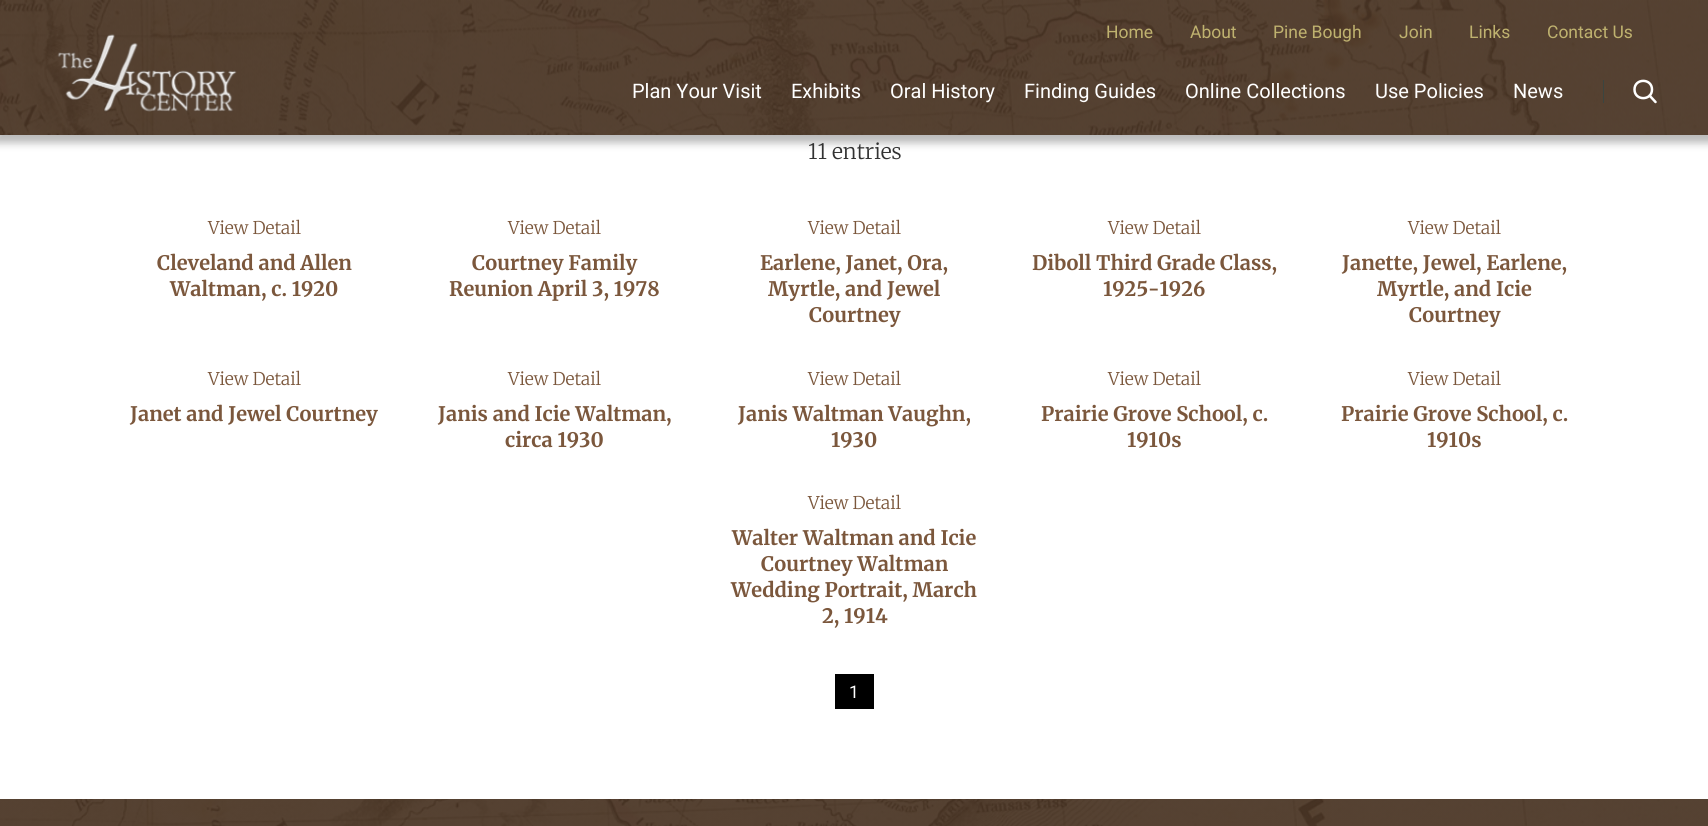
#include <cairo.h>
#include <math.h>
#include <stddef.h>


static void round_rect(cairo_t *cr, double x, double y, double w, double h, double r) {
    cairo_new_sub_path(cr);
    cairo_arc(cr, x + w - r, y + h - r, r, 0, M_PI / 2);
    cairo_arc(cr, x + r, y + h - r, r, M_PI / 2, M_PI);
    cairo_arc(cr, x + r, y + r, r, M_PI, 1.5 * M_PI);
    cairo_arc(cr, x + w - r, y + r, r, 1.5 * M_PI, 2 * M_PI);
    cairo_close_path(cr);
}

static void shadow(cairo_t *cr, double x, double y, double w, double h, double r, double blur, double alpha) {
    cairo_push_group_with_content(cr, CAIRO_CONTENT_ALPHA);
    cairo_set_operator(cr, CAIRO_OPERATOR_SOURCE);
    for (int i = 15; i >= -15 && fmin(w, h) + blur * i / 3 > 0; i -= 2) {
        double e = blur * i / 6;
        cairo_set_source_rgba(cr, 0, 0, 0, alpha * erfc((i - 1) / 8.5) / 2);
        round_rect(cr, x - e, y - e, w + 2 * e, h + 2 * e, fmax(0, fmin(r + e + blur * .6, fmin(w, h) / 2 + e)));
        cairo_fill(cr);
    }
    cairo_pattern_t *soft = cairo_pop_group(cr);
    cairo_mask(cr, soft);
    cairo_pattern_destroy(soft);
}

static void picture(cairo_t *cr, const char *path, double x, double y, double w, double h) {
    cairo_surface_t *image = cairo_image_surface_create_from_png(path);
    cairo_save(cr);
    cairo_set_source_surface(cr, image, x, y);
    cairo_rectangle(cr, x, y, w, h);
    cairo_fill(cr);
    cairo_restore(cr);
    cairo_surface_destroy(image);
}

int main(void) {
    cairo_surface_t *surface = cairo_image_surface_create(CAIRO_FORMAT_RGB24, 1708, 826);
    cairo_t *cr = cairo_create(surface);
    cairo_font_options_t *options = cairo_font_options_create();
    cairo_font_options_set_hint_metrics(options, CAIRO_HINT_METRICS_OFF);
    cairo_font_options_set_hint_style(options, CAIRO_HINT_STYLE_NONE);
    cairo_set_font_options(cr, options);
    cairo_set_miter_limit(cr, 4);
    cairo_set_source_rgb(cr, 1, 1, 1);
    cairo_paint(cr);
    cairo_set_source_rgb(cr, 0, 0, 0);
    shadow(cr, -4, 0, 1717, 143, 0, 4, 0.27);
    picture(cr, "img1.png", 0, 0, 1708, 135);
    cairo_select_font_face(cr, "Roboto", CAIRO_FONT_SLANT_NORMAL, CAIRO_FONT_WEIGHT_NORMAL);
    cairo_set_font_size(cr, 17.5);
    cairo_set_source_rgb(cr, 0.749, 0.698, 0.435);
    cairo_move_to(cr, 1106, 38);
    cairo_show_text(cr, "Home");
    cairo_move_to(cr, 1190, 38);
    cairo_show_text(cr, "About");
    cairo_move_to(cr, 1273, 38);
    cairo_show_text(cr, "Pine Bough");
    cairo_move_to(cr, 1399, 38);
    cairo_show_text(cr, "Join");
    cairo_move_to(cr, 1469, 38);
    cairo_show_text(cr, "Links");
    cairo_move_to(cr, 1547, 38);
    cairo_show_text(cr, "Contact Us");
    picture(cr, "img2.png", 57, 34, 180, 78);
    cairo_set_font_size(cr, 20);
    cairo_set_source_rgb(cr, 1, 1, 1);
    cairo_move_to(cr, 632, 98);
    cairo_show_text(cr, "Plan Your Visit");
    cairo_move_to(cr, 791, 98);
    cairo_show_text(cr, "Exhibits");
    cairo_move_to(cr, 890, 98);
    cairo_show_text(cr, "Oral History");
    cairo_move_to(cr, 1024, 98);
    cairo_show_text(cr, "Finding Guides");
    cairo_move_to(cr, 1185, 98);
    cairo_show_text(cr, "Online Collections");
    cairo_move_to(cr, 1375, 98);
    cairo_show_text(cr, "Use Policies");
    cairo_move_to(cr, 1513, 98);
    cairo_show_text(cr, "News");
    cairo_set_source_rgb(cr, 0.231, 0.271, 0.251);
    cairo_rectangle(cr, 1603, 80, 1, 23);
    cairo_fill(cr);
    cairo_new_path(cr);
    cairo_move_to(cr, 1649.5, 95.5);
    cairo_line_to(cr, 1655.5, 102);
    cairo_move_to(cr, 1652, 89.5);
    cairo_curve_to(cr, 1652, 101, 1634.5, 101, 1634.5, 89.5);
    cairo_curve_to(cr, 1634.5, 78, 1652, 78, 1652, 89.5);
    cairo_close_path(cr);
    cairo_set_source_rgb(cr, 1, 1, 1);
    cairo_set_line_width(cr, 2.5);
    cairo_set_line_cap(cr, CAIRO_LINE_CAP_ROUND);
    cairo_set_line_join(cr, CAIRO_LINE_JOIN_ROUND);
    cairo_stroke(cr);
    cairo_select_font_face(cr, "Merriweather Light", CAIRO_FONT_SLANT_NORMAL, CAIRO_FONT_WEIGHT_NORMAL);
    cairo_set_font_size(cr, 21.25);
    cairo_set_source_rgb(cr, 0.2, 0.2, 0.2);
    cairo_move_to(cr, 808, 159);
    cairo_show_text(cr, "11 entries");
    cairo_set_font_size(cr, 17.5);
    cairo_set_source_rgb(cr, 0.482, 0.341, 0.235);
    cairo_move_to(cr, 208, 234);
    cairo_show_text(cr, "View Detail");
    cairo_select_font_face(cr, "Merriweather", CAIRO_FONT_SLANT_NORMAL, CAIRO_FONT_WEIGHT_BOLD);
    cairo_set_font_size(cr, 20);
    cairo_move_to(cr, 157, 270);
    cairo_show_text(cr, "Cleveland and Allen");
    cairo_move_to(cr, 170, 296);
    cairo_show_text(cr, "Waltman, c. 1920");
    cairo_select_font_face(cr, "Merriweather Light", CAIRO_FONT_SLANT_NORMAL, CAIRO_FONT_WEIGHT_NORMAL);
    cairo_set_font_size(cr, 17.5);
    cairo_move_to(cr, 508, 234);
    cairo_show_text(cr, "View Detail");
    cairo_select_font_face(cr, "Merriweather", CAIRO_FONT_SLANT_NORMAL, CAIRO_FONT_WEIGHT_BOLD);
    cairo_set_font_size(cr, 20);
    cairo_move_to(cr, 472, 270);
    cairo_show_text(cr, "Courtney Family");
    cairo_move_to(cr, 449, 296);
    cairo_show_text(cr, "Reunion April 3, 1978");
    cairo_select_font_face(cr, "Merriweather Light", CAIRO_FONT_SLANT_NORMAL, CAIRO_FONT_WEIGHT_NORMAL);
    cairo_set_font_size(cr, 17.5);
    cairo_move_to(cr, 808, 234);
    cairo_show_text(cr, "View Detail");
    cairo_select_font_face(cr, "Merriweather", CAIRO_FONT_SLANT_NORMAL, CAIRO_FONT_WEIGHT_BOLD);
    cairo_set_font_size(cr, 20);
    cairo_move_to(cr, 760, 270);
    cairo_show_text(cr, "Earlene, Janet, Ora,");
    cairo_move_to(cr, 768, 296);
    cairo_show_text(cr, "Myrtle, and Jewel");
    cairo_move_to(cr, 809, 322);
    cairo_show_text(cr, "Courtney");
    cairo_select_font_face(cr, "Merriweather Light", CAIRO_FONT_SLANT_NORMAL, CAIRO_FONT_WEIGHT_NORMAL);
    cairo_set_font_size(cr, 17.5);
    cairo_move_to(cr, 1108, 234);
    cairo_show_text(cr, "View Detail");
    cairo_select_font_face(cr, "Merriweather", CAIRO_FONT_SLANT_NORMAL, CAIRO_FONT_WEIGHT_BOLD);
    cairo_set_font_size(cr, 20);
    cairo_move_to(cr, 1032, 270);
    cairo_show_text(cr, "Diboll Third Grade Class,");
    cairo_move_to(cr, 1103, 296);
    cairo_show_text(cr, "1925-1926");
    cairo_select_font_face(cr, "Merriweather Light", CAIRO_FONT_SLANT_NORMAL, CAIRO_FONT_WEIGHT_NORMAL);
    cairo_set_font_size(cr, 17.5);
    cairo_move_to(cr, 1408, 234);
    cairo_show_text(cr, "View Detail");
    cairo_select_font_face(cr, "Merriweather", CAIRO_FONT_SLANT_NORMAL, CAIRO_FONT_WEIGHT_BOLD);
    cairo_set_font_size(cr, 20);
    cairo_move_to(cr, 1342, 270);
    cairo_show_text(cr, "Janette, Jewel, Earlene,");
    cairo_move_to(cr, 1377, 296);
    cairo_show_text(cr, "Myrtle, and Icie");
    cairo_move_to(cr, 1409, 322);
    cairo_show_text(cr, "Courtney");
    cairo_select_font_face(cr, "Merriweather Light", CAIRO_FONT_SLANT_NORMAL, CAIRO_FONT_WEIGHT_NORMAL);
    cairo_set_font_size(cr, 17.5);
    cairo_move_to(cr, 208, 385);
    cairo_show_text(cr, "View Detail");
    cairo_select_font_face(cr, "Merriweather", CAIRO_FONT_SLANT_NORMAL, CAIRO_FONT_WEIGHT_BOLD);
    cairo_set_font_size(cr, 20);
    cairo_move_to(cr, 130, 421);
    cairo_show_text(cr, "Janet and Jewel Courtney");
    cairo_select_font_face(cr, "Merriweather Light", CAIRO_FONT_SLANT_NORMAL, CAIRO_FONT_WEIGHT_NORMAL);
    cairo_set_font_size(cr, 17.5);
    cairo_move_to(cr, 508, 385);
    cairo_show_text(cr, "View Detail");
    cairo_select_font_face(cr, "Merriweather", CAIRO_FONT_SLANT_NORMAL, CAIRO_FONT_WEIGHT_BOLD);
    cairo_set_font_size(cr, 20);
    cairo_move_to(cr, 438, 421);
    cairo_show_text(cr, "Janis and Icie Waltman,");
    cairo_move_to(cr, 505, 447);
    cairo_show_text(cr, "circa 1930");
    cairo_select_font_face(cr, "Merriweather Light", CAIRO_FONT_SLANT_NORMAL, CAIRO_FONT_WEIGHT_NORMAL);
    cairo_set_font_size(cr, 17.5);
    cairo_move_to(cr, 808, 385);
    cairo_show_text(cr, "View Detail");
    cairo_select_font_face(cr, "Merriweather", CAIRO_FONT_SLANT_NORMAL, CAIRO_FONT_WEIGHT_BOLD);
    cairo_set_font_size(cr, 20);
    cairo_move_to(cr, 738, 421);
    cairo_show_text(cr, "Janis Waltman Vaughn,");
    cairo_move_to(cr, 831, 447);
    cairo_show_text(cr, "1930");
    cairo_select_font_face(cr, "Merriweather Light", CAIRO_FONT_SLANT_NORMAL, CAIRO_FONT_WEIGHT_NORMAL);
    cairo_set_font_size(cr, 17.5);
    cairo_move_to(cr, 1108, 385);
    cairo_show_text(cr, "View Detail");
    cairo_select_font_face(cr, "Merriweather", CAIRO_FONT_SLANT_NORMAL, CAIRO_FONT_WEIGHT_BOLD);
    cairo_set_font_size(cr, 20);
    cairo_move_to(cr, 1041, 421);
    cairo_show_text(cr, "Prairie Grove School, c.");
    cairo_move_to(cr, 1127, 447);
    cairo_show_text(cr, "1910s");
    cairo_select_font_face(cr, "Merriweather Light", CAIRO_FONT_SLANT_NORMAL, CAIRO_FONT_WEIGHT_NORMAL);
    cairo_set_font_size(cr, 17.5);
    cairo_move_to(cr, 1408, 385);
    cairo_show_text(cr, "View Detail");
    cairo_select_font_face(cr, "Merriweather", CAIRO_FONT_SLANT_NORMAL, CAIRO_FONT_WEIGHT_BOLD);
    cairo_set_font_size(cr, 20);
    cairo_move_to(cr, 1341, 421);
    cairo_show_text(cr, "Prairie Grove School, c.");
    cairo_move_to(cr, 1427, 447);
    cairo_show_text(cr, "1910s");
    cairo_select_font_face(cr, "Merriweather Light", CAIRO_FONT_SLANT_NORMAL, CAIRO_FONT_WEIGHT_NORMAL);
    cairo_set_font_size(cr, 17.5);
    cairo_move_to(cr, 808, 509);
    cairo_show_text(cr, "View Detail");
    cairo_select_font_face(cr, "Merriweather", CAIRO_FONT_SLANT_NORMAL, CAIRO_FONT_WEIGHT_BOLD);
    cairo_set_font_size(cr, 20);
    cairo_move_to(cr, 732, 545);
    cairo_show_text(cr, "Walter Waltman and Icie");
    cairo_move_to(cr, 761, 571);
    cairo_show_text(cr, "Courtney Waltman");
    cairo_move_to(cr, 731, 597);
    cairo_show_text(cr, "Wedding Portrait, March");
    cairo_move_to(cr, 822, 623);
    cairo_show_text(cr, "2, 1914");
    cairo_set_source_rgb(cr, 0, 0, 0);
    cairo_rectangle(cr, 835, 674, 39, 35);
    cairo_fill(cr);
    cairo_select_font_face(cr, "Roboto", CAIRO_FONT_SLANT_NORMAL, CAIRO_FONT_WEIGHT_NORMAL);
    cairo_set_font_size(cr, 17.5);
    cairo_set_source_rgb(cr, 1, 1, 1);
    cairo_move_to(cr, 849, 698);
    cairo_show_text(cr, "1");
    picture(cr, "img3.png", 0, 799, 1708, 27);
    cairo_surface_write_to_png(surface, "page.png");
    cairo_font_options_destroy(options);
    cairo_destroy(cr);
    cairo_surface_destroy(surface);
    return 0;
}
